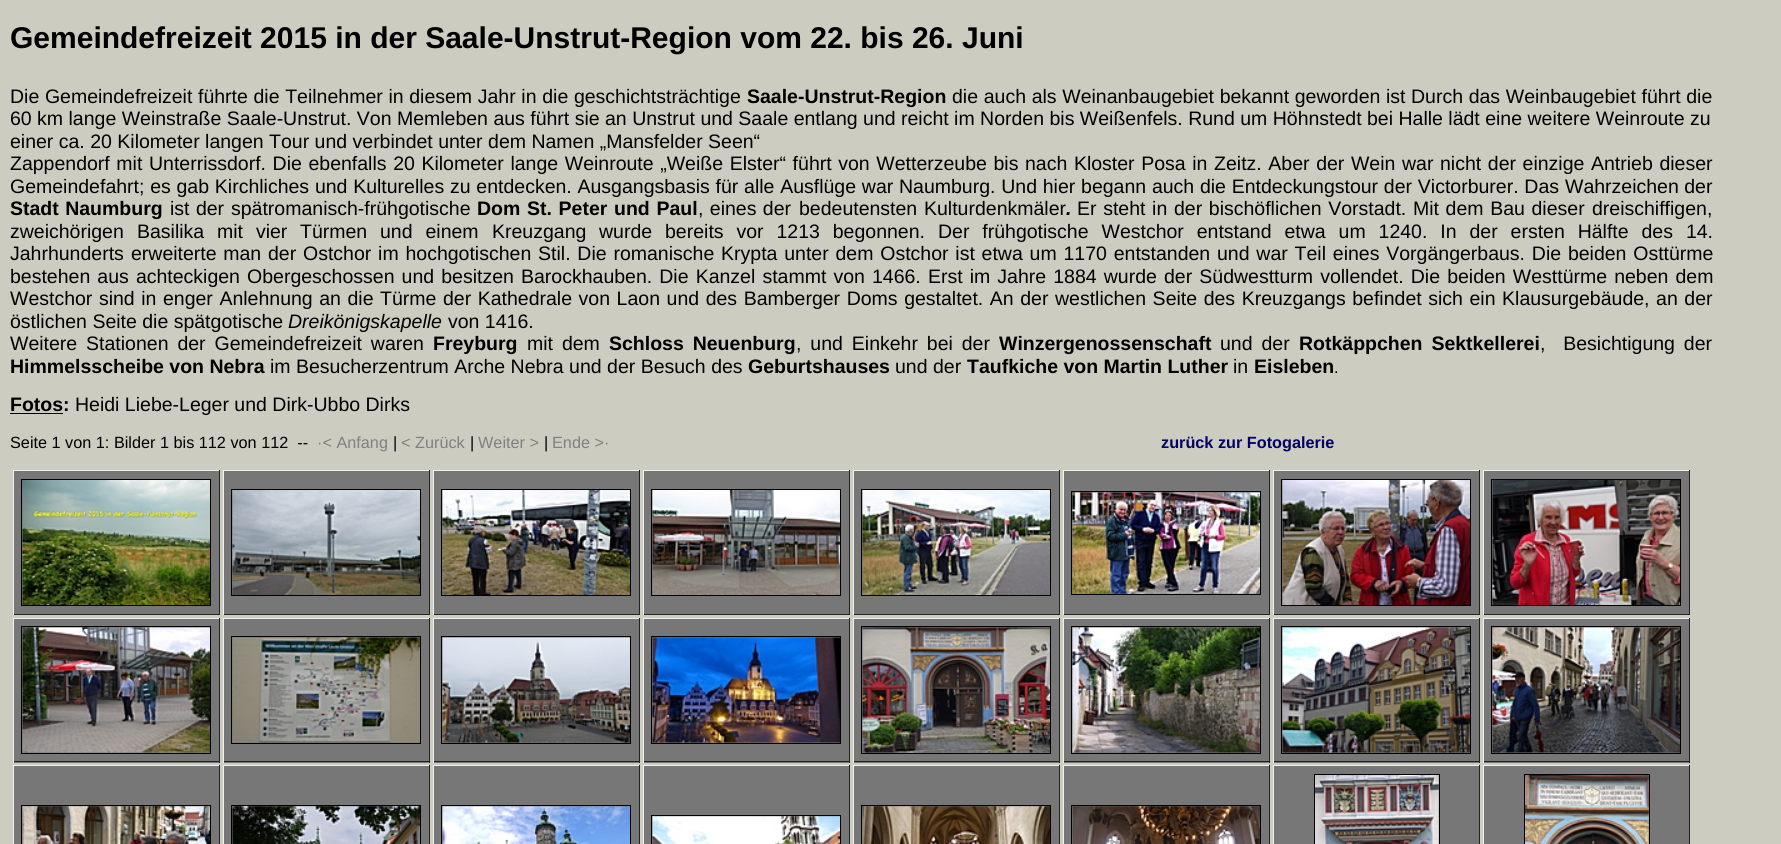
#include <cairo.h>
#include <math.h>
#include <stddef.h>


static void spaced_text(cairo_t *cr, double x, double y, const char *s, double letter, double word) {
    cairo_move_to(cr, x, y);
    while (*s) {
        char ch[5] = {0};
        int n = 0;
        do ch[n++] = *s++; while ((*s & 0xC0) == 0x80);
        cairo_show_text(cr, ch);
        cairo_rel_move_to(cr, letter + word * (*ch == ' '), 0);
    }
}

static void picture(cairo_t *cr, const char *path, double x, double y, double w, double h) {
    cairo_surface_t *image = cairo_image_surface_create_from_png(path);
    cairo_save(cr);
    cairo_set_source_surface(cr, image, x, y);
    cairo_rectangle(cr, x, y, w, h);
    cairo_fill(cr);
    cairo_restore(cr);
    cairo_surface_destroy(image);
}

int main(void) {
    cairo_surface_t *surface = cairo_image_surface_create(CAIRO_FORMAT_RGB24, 1781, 844);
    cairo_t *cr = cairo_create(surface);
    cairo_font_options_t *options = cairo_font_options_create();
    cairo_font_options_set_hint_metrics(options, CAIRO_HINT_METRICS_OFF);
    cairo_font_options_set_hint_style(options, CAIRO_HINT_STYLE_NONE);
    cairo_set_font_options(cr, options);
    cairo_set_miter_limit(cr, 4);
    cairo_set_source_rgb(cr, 0.8, 0.8, 0.753);
    cairo_paint(cr);
    cairo_select_font_face(cr, "Liberation Sans", CAIRO_FONT_SLANT_NORMAL, CAIRO_FONT_WEIGHT_BOLD);
    cairo_set_font_size(cr, 30);
    cairo_set_source_rgb(cr, 0, 0, 0);
    cairo_move_to(cr, 10, 48);
    cairo_show_text(cr, "Gemeindefreizeit 2015 in der Saale-Unstrut-Region vom 22. bis 26. Juni");
    cairo_select_font_face(cr, "Liberation Sans", CAIRO_FONT_SLANT_NORMAL, CAIRO_FONT_WEIGHT_NORMAL);
    cairo_set_font_size(cr, 19.5);
    spaced_text(cr, 10, 103, "Die Gemeindefreizeit führte die Teilnehmer in diesem Jahr in die geschichtsträchtige", 0, 0.25);
    cairo_select_font_face(cr, "Liberation Sans", CAIRO_FONT_SLANT_NORMAL, CAIRO_FONT_WEIGHT_BOLD);
    cairo_move_to(cr, 747, 103);
    cairo_show_text(cr, "Saale-Unstrut-Region");
    cairo_select_font_face(cr, "Liberation Sans", CAIRO_FONT_SLANT_NORMAL, CAIRO_FONT_WEIGHT_NORMAL);
    spaced_text(cr, 952, 103, "die auch als Weinanbaugebiet bekannt geworden ist", 0, 0.25);
    spaced_text(cr, 1411, 103, "Durch das Weinbaugebiet führt die", 0, 0.25);
    cairo_move_to(cr, 10, 125);
    cairo_show_text(cr, "60 km lange Weinstraße Saale-Unstrut. Von Memleben aus führt sie an Unstrut und Saale entlang und reicht im Norden bis Weißenfels. Rund um Höhnstedt bei Halle lädt eine weitere Weinroute zu");
    cairo_move_to(cr, 10, 148);
    cairo_show_text(cr, "einer ca. 20 Kilometer langen Tour und verbindet unter dem Namen „Mansfelder Seen“");
    spaced_text(cr, 10, 170, "Zappendorf mit Unterrissdorf. Die ebenfalls 20 Kilometer lange Weinroute „Weiße Elster“ führt von Wetterzeube bis nach Kloster Posa in Zeitz. Aber der Wein war", 0, 1.2);
    spaced_text(cr, 1440, 170, "nicht der einzige Antrieb dieser", 0, 1.2);
    spaced_text(cr, 10, 193, "Gemeindefahrt; es gab Kirchliches und Kulturelles zu entdecken. Ausgangsbasis für alle Ausflüge war Naumburg. Und hier begann auch die Entdeckungstour der Victorburer. Das", 0, 0.35);
    cairo_move_to(cr, 1565, 193);
    cairo_show_text(cr, "Wahrzeichen der");
    cairo_select_font_face(cr, "Liberation Sans", CAIRO_FONT_SLANT_NORMAL, CAIRO_FONT_WEIGHT_BOLD);
    spaced_text(cr, 10, 215, "Stadt Naumburg", 0, 1);
    cairo_select_font_face(cr, "Liberation Sans", CAIRO_FONT_SLANT_NORMAL, CAIRO_FONT_WEIGHT_NORMAL);
    spaced_text(cr, 170, 215, "ist der", 0, 1);
    cairo_move_to(cr, 231, 215);
    cairo_show_text(cr, "spätromanisch-frühgotische");
    cairo_select_font_face(cr, "Liberation Sans", CAIRO_FONT_SLANT_NORMAL, CAIRO_FONT_WEIGHT_BOLD);
    spaced_text(cr, 477, 215, "Dom St. Peter und Paul", 0, 1.25);
    cairo_select_font_face(cr, "Liberation Sans", CAIRO_FONT_SLANT_NORMAL, CAIRO_FONT_WEIGHT_NORMAL);
    spaced_text(cr, 698, 215, ", eines der", 0, 1);
    cairo_move_to(cr, 799, 215);
    cairo_show_text(cr, "bedeutensten");
    cairo_move_to(cr, 924, 215);
    cairo_show_text(cr, "Kulturdenkmäler");
    cairo_select_font_face(cr, "Liberation Sans", CAIRO_FONT_SLANT_ITALIC, CAIRO_FONT_WEIGHT_BOLD);
    cairo_move_to(cr, 1066, 215);
    cairo_show_text(cr, ".");
    cairo_select_font_face(cr, "Liberation Sans", CAIRO_FONT_SLANT_NORMAL, CAIRO_FONT_WEIGHT_NORMAL);
    spaced_text(cr, 1077, 215, "Er steht in der bischöflichen Vorstadt. Mit dem Bau dieser", 0, 1.25);
    cairo_move_to(cr, 1592, 215);
    cairo_show_text(cr, "dreischiffigen,");
    cairo_move_to(cr, 10, 238);
    cairo_show_text(cr, "zweichörigen");
    cairo_move_to(cr, 137, 238);
    cairo_show_text(cr, "Basilika");
    spaced_text(cr, 217, 238, "mit vier", 0, 7.5);
    cairo_move_to(cr, 300, 238);
    cairo_show_text(cr, "Türmen");
    spaced_text(cr, 380, 238, "und einem", 0, 7.5);
    cairo_move_to(cr, 492, 238);
    cairo_show_text(cr, "Kreuzgang");
    spaced_text(cr, 599, 238, "wurde bereits vor 1213 begonnen.", 0, 7.5);
    spaced_text(cr, 938, 238, "Der frühgotische Westchor entstand etwa um 1240. In der ersten Hälfte des 14.", 0, 7.5);
    cairo_move_to(cr, 10, 260);
    cairo_show_text(cr, "Jahrhunderts");
    spaced_text(cr, 131, 260, "erweiterte man", 0, 1.25);
    spaced_text(cr, 268, 260, "der Ostchor im hochgotischen Stil. Die romanische Krypta unter dem Ostchor ist etwa um 1170 entstanden und war Teil eines Vorgängerbaus. Die beiden Osttürme", 0, 1.4);
    spaced_text(cr, 10, 283, "bestehen aus achteckigen Obergeschossen und besitzen Barockhauben. Die Kanzel stammt von 1466. Erst im Jahre 1884 wurde der Südwestturm vollendet. Die beiden Westtürme neben dem", 0, 1.7);
    spaced_text(cr, 10, 305, "Westchor sind in enger Anlehnung an die Türme der Kathedrale von Laon und des Bamberger Doms gestaltet. An der westlichen Seite des Kreuzgangs befindet sich ein Klausurgebäude, an der", 0, 1.15);
    cairo_move_to(cr, 10, 328);
    cairo_show_text(cr, "östlichen Seite die spätgotische");
    cairo_select_font_face(cr, "Liberation Sans", CAIRO_FONT_SLANT_ITALIC, CAIRO_FONT_WEIGHT_NORMAL);
    cairo_move_to(cr, 288, 328);
    cairo_show_text(cr, "Dreikönigskapelle");
    cairo_select_font_face(cr, "Liberation Sans", CAIRO_FONT_SLANT_NORMAL, CAIRO_FONT_WEIGHT_NORMAL);
    cairo_move_to(cr, 448, 328);
    cairo_show_text(cr, "von 1416.");
    spaced_text(cr, 10, 350, "Weitere Stationen der Gemeindefreizeit waren", 0, 3.5);
    cairo_select_font_face(cr, "Liberation Sans", CAIRO_FONT_SLANT_NORMAL, CAIRO_FONT_WEIGHT_BOLD);
    cairo_move_to(cr, 433, 350);
    cairo_show_text(cr, "Freyburg");
    cairo_select_font_face(cr, "Liberation Sans", CAIRO_FONT_SLANT_NORMAL, CAIRO_FONT_WEIGHT_NORMAL);
    spaced_text(cr, 527, 350, "mit dem", 0, 3.5);
    cairo_select_font_face(cr, "Liberation Sans", CAIRO_FONT_SLANT_NORMAL, CAIRO_FONT_WEIGHT_BOLD);
    spaced_text(cr, 609, 350, "Schloss Neuenburg", 0, 3.5);
    cairo_select_font_face(cr, "Liberation Sans", CAIRO_FONT_SLANT_NORMAL, CAIRO_FONT_WEIGHT_NORMAL);
    spaced_text(cr, 796, 350, ", und Einkehr bei der", 0, 3.5);
    cairo_select_font_face(cr, "Liberation Sans", CAIRO_FONT_SLANT_NORMAL, CAIRO_FONT_WEIGHT_BOLD);
    cairo_move_to(cr, 999, 350);
    cairo_show_text(cr, "Winzergenossenschaft");
    cairo_select_font_face(cr, "Liberation Sans", CAIRO_FONT_SLANT_NORMAL, CAIRO_FONT_WEIGHT_NORMAL);
    spaced_text(cr, 1220, 350, "und der", 0, 3.5);
    cairo_select_font_face(cr, "Liberation Sans", CAIRO_FONT_SLANT_NORMAL, CAIRO_FONT_WEIGHT_BOLD);
    spaced_text(cr, 1299, 350, "Rotkäppchen Sektkellerei", 0, 3.5);
    cairo_select_font_face(cr, "Liberation Sans", CAIRO_FONT_SLANT_NORMAL, CAIRO_FONT_WEIGHT_NORMAL);
    spaced_text(cr, 1540, 350, ",  Besichtigung der", 0, 3.5);
    cairo_select_font_face(cr, "Liberation Sans", CAIRO_FONT_SLANT_NORMAL, CAIRO_FONT_WEIGHT_BOLD);
    cairo_move_to(cr, 10, 373);
    cairo_show_text(cr, "Himmelsscheibe von Nebra");
    cairo_select_font_face(cr, "Liberation Sans", CAIRO_FONT_SLANT_NORMAL, CAIRO_FONT_WEIGHT_NORMAL);
    cairo_move_to(cr, 270, 373);
    cairo_show_text(cr, "im Besucherzentrum Arche Nebra und der Besuch des");
    cairo_select_font_face(cr, "Liberation Sans", CAIRO_FONT_SLANT_NORMAL, CAIRO_FONT_WEIGHT_BOLD);
    cairo_move_to(cr, 748, 373);
    cairo_show_text(cr, "Geburtshauses");
    cairo_select_font_face(cr, "Liberation Sans", CAIRO_FONT_SLANT_NORMAL, CAIRO_FONT_WEIGHT_NORMAL);
    cairo_move_to(cr, 895, 373);
    cairo_show_text(cr, "und der");
    cairo_select_font_face(cr, "Liberation Sans", CAIRO_FONT_SLANT_NORMAL, CAIRO_FONT_WEIGHT_BOLD);
    cairo_move_to(cr, 967, 373);
    cairo_show_text(cr, "Taufkiche von Martin Luther");
    cairo_select_font_face(cr, "Liberation Sans", CAIRO_FONT_SLANT_NORMAL, CAIRO_FONT_WEIGHT_NORMAL);
    cairo_move_to(cr, 1233, 373);
    cairo_show_text(cr, "in");
    cairo_select_font_face(cr, "Liberation Sans", CAIRO_FONT_SLANT_NORMAL, CAIRO_FONT_WEIGHT_BOLD);
    cairo_move_to(cr, 1254, 373);
    cairo_show_text(cr, "Eisleben");
    cairo_select_font_face(cr, "Liberation Sans", CAIRO_FONT_SLANT_NORMAL, CAIRO_FONT_WEIGHT_NORMAL);
    cairo_set_font_size(cr, 16.25);
    cairo_move_to(cr, 1334, 373);
    cairo_show_text(cr, ".");
    cairo_select_font_face(cr, "Liberation Sans", CAIRO_FONT_SLANT_NORMAL, CAIRO_FONT_WEIGHT_BOLD);
    cairo_set_font_size(cr, 19.5);
    cairo_move_to(cr, 10, 411);
    cairo_show_text(cr, "Fotos:");
    cairo_rectangle(cr, 10, 413, 53, 1);
    cairo_fill(cr);
    cairo_select_font_face(cr, "Liberation Sans", CAIRO_FONT_SLANT_NORMAL, CAIRO_FONT_WEIGHT_NORMAL);
    cairo_move_to(cr, 75, 411);
    cairo_show_text(cr, "Heidi Liebe-Leger und Dirk-Ubbo Dirks");
    cairo_set_font_size(cr, 16.25);
    cairo_move_to(cr, 10, 448);
    cairo_show_text(cr, "Seite 1 von 1: Bilder 1 bis 112 von 112  --");
    cairo_set_source_rgb(cr, 0.502, 0.502, 0.502);
    cairo_move_to(cr, 317, 448);
    cairo_show_text(cr, "·< Anfang");
    cairo_set_source_rgb(cr, 0, 0, 0);
    cairo_move_to(cr, 393, 448);
    cairo_show_text(cr, "|");
    cairo_set_source_rgb(cr, 0.502, 0.502, 0.502);
    cairo_move_to(cr, 401, 448);
    cairo_show_text(cr, "< Zurück");
    cairo_set_source_rgb(cr, 0, 0, 0);
    cairo_move_to(cr, 470, 448);
    cairo_show_text(cr, "|");
    cairo_set_source_rgb(cr, 0.502, 0.502, 0.502);
    cairo_move_to(cr, 478, 448);
    cairo_show_text(cr, "Weiter >");
    cairo_set_source_rgb(cr, 0, 0, 0);
    cairo_move_to(cr, 544, 448);
    cairo_show_text(cr, "|");
    cairo_set_source_rgb(cr, 0.502, 0.502, 0.502);
    cairo_move_to(cr, 552, 448);
    cairo_show_text(cr, "Ende >·");
    cairo_select_font_face(cr, "Liberation Sans", CAIRO_FONT_SLANT_NORMAL, CAIRO_FONT_WEIGHT_BOLD);
    cairo_set_source_rgb(cr, 0, 0, 0.4);
    cairo_move_to(cr, 1161, 448);
    cairo_show_text(cr, "zurück zur Fotogalerie");
    cairo_set_source_rgb(cr, 0.467, 0.467, 0.467);
    cairo_rectangle(cr, 14, 471, 205, 143);
    cairo_fill(cr);
    cairo_set_source_rgb(cr, 0.941, 0.941, 0.941);
    cairo_rectangle(cr, 13, 470, 207, 1);
    cairo_fill(cr);
    cairo_set_source_rgb(cr, 0.133, 0.133, 0.133);
    cairo_rectangle(cr, 219, 470, 1, 145);
    cairo_fill(cr);
    cairo_rectangle(cr, 13, 614, 207, 1);
    cairo_fill(cr);
    cairo_set_source_rgb(cr, 0.941, 0.941, 0.941);
    cairo_rectangle(cr, 13, 470, 1, 145);
    cairo_fill(cr);
    cairo_rectangle(cr, 21.5, 479.5, 189, 126);
    cairo_set_source_rgb(cr, 0, 0, 0);
    cairo_set_line_width(cr, 1);
    cairo_stroke(cr);
    picture(cr, "img1.png", 22, 480, 188, 125);
    cairo_set_source_rgb(cr, 0.467, 0.467, 0.467);
    cairo_rectangle(cr, 224, 471, 205, 143);
    cairo_fill(cr);
    cairo_set_source_rgb(cr, 0.941, 0.941, 0.941);
    cairo_rectangle(cr, 223, 470, 207, 1);
    cairo_fill(cr);
    cairo_set_source_rgb(cr, 0.133, 0.133, 0.133);
    cairo_rectangle(cr, 429, 470, 1, 145);
    cairo_fill(cr);
    cairo_rectangle(cr, 223, 614, 207, 1);
    cairo_fill(cr);
    cairo_set_source_rgb(cr, 0.941, 0.941, 0.941);
    cairo_rectangle(cr, 223, 470, 1, 145);
    cairo_fill(cr);
    cairo_rectangle(cr, 231.5, 489.5, 189, 106);
    cairo_set_source_rgb(cr, 0, 0, 0);
    cairo_stroke(cr);
    picture(cr, "img2.png", 232, 490, 188, 105);
    cairo_set_source_rgb(cr, 0.467, 0.467, 0.467);
    cairo_rectangle(cr, 434, 471, 205, 143);
    cairo_fill(cr);
    cairo_set_source_rgb(cr, 0.941, 0.941, 0.941);
    cairo_rectangle(cr, 433, 470, 207, 1);
    cairo_fill(cr);
    cairo_set_source_rgb(cr, 0.133, 0.133, 0.133);
    cairo_rectangle(cr, 639, 470, 1, 145);
    cairo_fill(cr);
    cairo_rectangle(cr, 433, 614, 207, 1);
    cairo_fill(cr);
    cairo_set_source_rgb(cr, 0.941, 0.941, 0.941);
    cairo_rectangle(cr, 433, 470, 1, 145);
    cairo_fill(cr);
    cairo_rectangle(cr, 441.5, 489.5, 189, 106);
    cairo_set_source_rgb(cr, 0, 0, 0);
    cairo_stroke(cr);
    picture(cr, "img3.png", 442, 490, 188, 105);
    cairo_set_source_rgb(cr, 0.467, 0.467, 0.467);
    cairo_rectangle(cr, 644, 471, 205, 143);
    cairo_fill(cr);
    cairo_set_source_rgb(cr, 0.941, 0.941, 0.941);
    cairo_rectangle(cr, 643, 470, 207, 1);
    cairo_fill(cr);
    cairo_set_source_rgb(cr, 0.133, 0.133, 0.133);
    cairo_rectangle(cr, 849, 470, 1, 145);
    cairo_fill(cr);
    cairo_rectangle(cr, 643, 614, 207, 1);
    cairo_fill(cr);
    cairo_set_source_rgb(cr, 0.941, 0.941, 0.941);
    cairo_rectangle(cr, 643, 470, 1, 145);
    cairo_fill(cr);
    cairo_rectangle(cr, 651.5, 489.5, 189, 106);
    cairo_set_source_rgb(cr, 0, 0, 0);
    cairo_stroke(cr);
    picture(cr, "img4.png", 652, 490, 188, 105);
    cairo_set_source_rgb(cr, 0.467, 0.467, 0.467);
    cairo_rectangle(cr, 854, 471, 205, 143);
    cairo_fill(cr);
    cairo_set_source_rgb(cr, 0.941, 0.941, 0.941);
    cairo_rectangle(cr, 853, 470, 207, 1);
    cairo_fill(cr);
    cairo_set_source_rgb(cr, 0.133, 0.133, 0.133);
    cairo_rectangle(cr, 1059, 470, 1, 145);
    cairo_fill(cr);
    cairo_rectangle(cr, 853, 614, 207, 1);
    cairo_fill(cr);
    cairo_set_source_rgb(cr, 0.941, 0.941, 0.941);
    cairo_rectangle(cr, 853, 470, 1, 145);
    cairo_fill(cr);
    cairo_rectangle(cr, 861.5, 489.5, 189, 106);
    cairo_set_source_rgb(cr, 0, 0, 0);
    cairo_stroke(cr);
    picture(cr, "img5.png", 862, 490, 188, 105);
    cairo_set_source_rgb(cr, 0.467, 0.467, 0.467);
    cairo_rectangle(cr, 1064, 471, 205, 143);
    cairo_fill(cr);
    cairo_set_source_rgb(cr, 0.941, 0.941, 0.941);
    cairo_rectangle(cr, 1063, 470, 207, 1);
    cairo_fill(cr);
    cairo_set_source_rgb(cr, 0.133, 0.133, 0.133);
    cairo_rectangle(cr, 1269, 470, 1, 145);
    cairo_fill(cr);
    cairo_rectangle(cr, 1063, 614, 207, 1);
    cairo_fill(cr);
    cairo_set_source_rgb(cr, 0.941, 0.941, 0.941);
    cairo_rectangle(cr, 1063, 470, 1, 145);
    cairo_fill(cr);
    cairo_rectangle(cr, 1071.5, 491.5, 189, 103);
    cairo_set_source_rgb(cr, 0, 0, 0);
    cairo_stroke(cr);
    picture(cr, "img6.png", 1072, 492, 188, 102);
    cairo_set_source_rgb(cr, 0.467, 0.467, 0.467);
    cairo_rectangle(cr, 1274, 471, 205, 143);
    cairo_fill(cr);
    cairo_set_source_rgb(cr, 0.941, 0.941, 0.941);
    cairo_rectangle(cr, 1273, 470, 207, 1);
    cairo_fill(cr);
    cairo_set_source_rgb(cr, 0.133, 0.133, 0.133);
    cairo_rectangle(cr, 1479, 470, 1, 145);
    cairo_fill(cr);
    cairo_rectangle(cr, 1273, 614, 207, 1);
    cairo_fill(cr);
    cairo_set_source_rgb(cr, 0.941, 0.941, 0.941);
    cairo_rectangle(cr, 1273, 470, 1, 145);
    cairo_fill(cr);
    cairo_rectangle(cr, 1281.5, 479.5, 189, 126);
    cairo_set_source_rgb(cr, 0, 0, 0);
    cairo_stroke(cr);
    picture(cr, "img7.png", 1282, 480, 188, 125);
    cairo_set_source_rgb(cr, 0.467, 0.467, 0.467);
    cairo_rectangle(cr, 1484, 471, 205, 143);
    cairo_fill(cr);
    cairo_set_source_rgb(cr, 0.941, 0.941, 0.941);
    cairo_rectangle(cr, 1483, 470, 207, 1);
    cairo_fill(cr);
    cairo_set_source_rgb(cr, 0.133, 0.133, 0.133);
    cairo_rectangle(cr, 1689, 470, 1, 145);
    cairo_fill(cr);
    cairo_rectangle(cr, 1483, 614, 207, 1);
    cairo_fill(cr);
    cairo_set_source_rgb(cr, 0.941, 0.941, 0.941);
    cairo_rectangle(cr, 1483, 470, 1, 145);
    cairo_fill(cr);
    cairo_rectangle(cr, 1491.5, 479.5, 189, 126);
    cairo_set_source_rgb(cr, 0, 0, 0);
    cairo_stroke(cr);
    picture(cr, "img8.png", 1492, 480, 188, 125);
    cairo_set_source_rgb(cr, 0.467, 0.467, 0.467);
    cairo_rectangle(cr, 14, 619, 205, 144);
    cairo_fill(cr);
    cairo_set_source_rgb(cr, 0.941, 0.941, 0.941);
    cairo_rectangle(cr, 13, 618, 207, 1);
    cairo_fill(cr);
    cairo_set_source_rgb(cr, 0.133, 0.133, 0.133);
    cairo_rectangle(cr, 219, 618, 1, 145);
    cairo_fill(cr);
    cairo_rectangle(cr, 13, 761, 207, 1);
    cairo_fill(cr);
    cairo_set_source_rgb(cr, 0.941, 0.941, 0.941);
    cairo_rectangle(cr, 13, 618, 1, 145);
    cairo_fill(cr);
    cairo_rectangle(cr, 21.5, 626.5, 189, 127);
    cairo_set_source_rgb(cr, 0, 0, 0);
    cairo_stroke(cr);
    picture(cr, "img9.png", 22, 627, 188, 126);
    cairo_set_source_rgb(cr, 0.467, 0.467, 0.467);
    cairo_rectangle(cr, 224, 619, 205, 144);
    cairo_fill(cr);
    cairo_set_source_rgb(cr, 0.941, 0.941, 0.941);
    cairo_rectangle(cr, 223, 618, 207, 1);
    cairo_fill(cr);
    cairo_set_source_rgb(cr, 0.133, 0.133, 0.133);
    cairo_rectangle(cr, 429, 618, 1, 145);
    cairo_fill(cr);
    cairo_rectangle(cr, 223, 761, 207, 1);
    cairo_fill(cr);
    cairo_set_source_rgb(cr, 0.941, 0.941, 0.941);
    cairo_rectangle(cr, 223, 618, 1, 145);
    cairo_fill(cr);
    cairo_rectangle(cr, 231.5, 636.5, 189, 107);
    cairo_set_source_rgb(cr, 0, 0, 0);
    cairo_stroke(cr);
    picture(cr, "img10.png", 232, 637, 188, 106);
    cairo_set_source_rgb(cr, 0.467, 0.467, 0.467);
    cairo_rectangle(cr, 434, 619, 205, 144);
    cairo_fill(cr);
    cairo_set_source_rgb(cr, 0.941, 0.941, 0.941);
    cairo_rectangle(cr, 433, 618, 207, 1);
    cairo_fill(cr);
    cairo_set_source_rgb(cr, 0.133, 0.133, 0.133);
    cairo_rectangle(cr, 639, 618, 1, 145);
    cairo_fill(cr);
    cairo_rectangle(cr, 433, 761, 207, 1);
    cairo_fill(cr);
    cairo_set_source_rgb(cr, 0.941, 0.941, 0.941);
    cairo_rectangle(cr, 433, 618, 1, 145);
    cairo_fill(cr);
    cairo_rectangle(cr, 441.5, 636.5, 189, 107);
    cairo_set_source_rgb(cr, 0, 0, 0);
    cairo_stroke(cr);
    picture(cr, "img11.png", 442, 637, 188, 106);
    cairo_set_source_rgb(cr, 0.467, 0.467, 0.467);
    cairo_rectangle(cr, 644, 619, 205, 144);
    cairo_fill(cr);
    cairo_set_source_rgb(cr, 0.941, 0.941, 0.941);
    cairo_rectangle(cr, 643, 618, 207, 1);
    cairo_fill(cr);
    cairo_set_source_rgb(cr, 0.133, 0.133, 0.133);
    cairo_rectangle(cr, 849, 618, 1, 145);
    cairo_fill(cr);
    cairo_rectangle(cr, 643, 761, 207, 1);
    cairo_fill(cr);
    cairo_set_source_rgb(cr, 0.941, 0.941, 0.941);
    cairo_rectangle(cr, 643, 618, 1, 145);
    cairo_fill(cr);
    cairo_rectangle(cr, 651.5, 636.5, 189, 107);
    cairo_set_source_rgb(cr, 0, 0, 0);
    cairo_stroke(cr);
    picture(cr, "img12.png", 652, 637, 188, 106);
    cairo_set_source_rgb(cr, 0.467, 0.467, 0.467);
    cairo_rectangle(cr, 854, 619, 205, 144);
    cairo_fill(cr);
    cairo_set_source_rgb(cr, 0.941, 0.941, 0.941);
    cairo_rectangle(cr, 853, 618, 207, 1);
    cairo_fill(cr);
    cairo_set_source_rgb(cr, 0.133, 0.133, 0.133);
    cairo_rectangle(cr, 1059, 618, 1, 145);
    cairo_fill(cr);
    cairo_rectangle(cr, 853, 761, 207, 1);
    cairo_fill(cr);
    cairo_set_source_rgb(cr, 0.941, 0.941, 0.941);
    cairo_rectangle(cr, 853, 618, 1, 145);
    cairo_fill(cr);
    cairo_rectangle(cr, 861.5, 626.5, 189, 127);
    cairo_set_source_rgb(cr, 0, 0, 0);
    cairo_stroke(cr);
    picture(cr, "img13.png", 862, 627, 188, 126);
    cairo_set_source_rgb(cr, 0.467, 0.467, 0.467);
    cairo_rectangle(cr, 1064, 619, 205, 144);
    cairo_fill(cr);
    cairo_set_source_rgb(cr, 0.941, 0.941, 0.941);
    cairo_rectangle(cr, 1063, 618, 207, 1);
    cairo_fill(cr);
    cairo_set_source_rgb(cr, 0.133, 0.133, 0.133);
    cairo_rectangle(cr, 1269, 618, 1, 145);
    cairo_fill(cr);
    cairo_rectangle(cr, 1063, 761, 207, 1);
    cairo_fill(cr);
    cairo_set_source_rgb(cr, 0.941, 0.941, 0.941);
    cairo_rectangle(cr, 1063, 618, 1, 145);
    cairo_fill(cr);
    cairo_rectangle(cr, 1071.5, 626.5, 189, 127);
    cairo_set_source_rgb(cr, 0, 0, 0);
    cairo_stroke(cr);
    picture(cr, "img14.png", 1072, 627, 188, 126);
    cairo_set_source_rgb(cr, 0.467, 0.467, 0.467);
    cairo_rectangle(cr, 1274, 619, 205, 144);
    cairo_fill(cr);
    cairo_set_source_rgb(cr, 0.941, 0.941, 0.941);
    cairo_rectangle(cr, 1273, 618, 207, 1);
    cairo_fill(cr);
    cairo_set_source_rgb(cr, 0.133, 0.133, 0.133);
    cairo_rectangle(cr, 1479, 618, 1, 145);
    cairo_fill(cr);
    cairo_rectangle(cr, 1273, 761, 207, 1);
    cairo_fill(cr);
    cairo_set_source_rgb(cr, 0.941, 0.941, 0.941);
    cairo_rectangle(cr, 1273, 618, 1, 145);
    cairo_fill(cr);
    cairo_rectangle(cr, 1281.5, 626.5, 189, 127);
    cairo_set_source_rgb(cr, 0, 0, 0);
    cairo_stroke(cr);
    picture(cr, "img15.png", 1282, 627, 188, 126);
    cairo_set_source_rgb(cr, 0.467, 0.467, 0.467);
    cairo_rectangle(cr, 1484, 619, 205, 144);
    cairo_fill(cr);
    cairo_set_source_rgb(cr, 0.941, 0.941, 0.941);
    cairo_rectangle(cr, 1483, 618, 207, 1);
    cairo_fill(cr);
    cairo_set_source_rgb(cr, 0.133, 0.133, 0.133);
    cairo_rectangle(cr, 1689, 618, 1, 145);
    cairo_fill(cr);
    cairo_rectangle(cr, 1483, 761, 207, 1);
    cairo_fill(cr);
    cairo_set_source_rgb(cr, 0.941, 0.941, 0.941);
    cairo_rectangle(cr, 1483, 618, 1, 145);
    cairo_fill(cr);
    cairo_rectangle(cr, 1491.5, 626.5, 189, 127);
    cairo_set_source_rgb(cr, 0, 0, 0);
    cairo_stroke(cr);
    picture(cr, "img16.png", 1492, 627, 188, 126);
    cairo_set_source_rgb(cr, 0.467, 0.467, 0.467);
    cairo_rectangle(cr, 14, 766, 205, 78);
    cairo_fill(cr);
    cairo_set_source_rgb(cr, 0.941, 0.941, 0.941);
    cairo_rectangle(cr, 13, 765, 207, 1);
    cairo_fill(cr);
    cairo_set_source_rgb(cr, 0.133, 0.133, 0.133);
    cairo_rectangle(cr, 219, 765, 1, 79);
    cairo_fill(cr);
    cairo_set_source_rgb(cr, 0.941, 0.941, 0.941);
    cairo_rectangle(cr, 13, 765, 1, 79);
    cairo_fill(cr);
    cairo_rectangle(cr, 21.5, 805.5, 189, 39);
    cairo_set_source_rgb(cr, 0, 0, 0);
    cairo_stroke(cr);
    picture(cr, "img17.png", 22, 806, 188, 38);
    cairo_set_source_rgb(cr, 0.467, 0.467, 0.467);
    cairo_rectangle(cr, 224, 766, 205, 78);
    cairo_fill(cr);
    cairo_set_source_rgb(cr, 0.941, 0.941, 0.941);
    cairo_rectangle(cr, 223, 765, 207, 1);
    cairo_fill(cr);
    cairo_set_source_rgb(cr, 0.133, 0.133, 0.133);
    cairo_rectangle(cr, 429, 765, 1, 79);
    cairo_fill(cr);
    cairo_set_source_rgb(cr, 0.941, 0.941, 0.941);
    cairo_rectangle(cr, 223, 765, 1, 79);
    cairo_fill(cr);
    cairo_rectangle(cr, 231.5, 805.5, 189, 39);
    cairo_set_source_rgb(cr, 0, 0, 0);
    cairo_stroke(cr);
    picture(cr, "img18.png", 232, 806, 188, 38);
    cairo_set_source_rgb(cr, 0.467, 0.467, 0.467);
    cairo_rectangle(cr, 434, 766, 205, 78);
    cairo_fill(cr);
    cairo_set_source_rgb(cr, 0.941, 0.941, 0.941);
    cairo_rectangle(cr, 433, 765, 207, 1);
    cairo_fill(cr);
    cairo_set_source_rgb(cr, 0.133, 0.133, 0.133);
    cairo_rectangle(cr, 639, 765, 1, 79);
    cairo_fill(cr);
    cairo_set_source_rgb(cr, 0.941, 0.941, 0.941);
    cairo_rectangle(cr, 433, 765, 1, 79);
    cairo_fill(cr);
    cairo_rectangle(cr, 441.5, 805.5, 189, 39);
    cairo_set_source_rgb(cr, 0, 0, 0);
    cairo_stroke(cr);
    picture(cr, "img19.png", 442, 806, 188, 38);
    cairo_set_source_rgb(cr, 0.467, 0.467, 0.467);
    cairo_rectangle(cr, 644, 766, 205, 78);
    cairo_fill(cr);
    cairo_set_source_rgb(cr, 0.941, 0.941, 0.941);
    cairo_rectangle(cr, 643, 765, 207, 1);
    cairo_fill(cr);
    cairo_set_source_rgb(cr, 0.133, 0.133, 0.133);
    cairo_rectangle(cr, 849, 765, 1, 79);
    cairo_fill(cr);
    cairo_set_source_rgb(cr, 0.941, 0.941, 0.941);
    cairo_rectangle(cr, 643, 765, 1, 79);
    cairo_fill(cr);
    cairo_rectangle(cr, 651.5, 815.5, 189, 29);
    cairo_set_source_rgb(cr, 0, 0, 0);
    cairo_stroke(cr);
    picture(cr, "img20.png", 652, 816, 188, 28);
    cairo_set_source_rgb(cr, 0.467, 0.467, 0.467);
    cairo_rectangle(cr, 854, 766, 205, 78);
    cairo_fill(cr);
    cairo_set_source_rgb(cr, 0.941, 0.941, 0.941);
    cairo_rectangle(cr, 853, 765, 207, 1);
    cairo_fill(cr);
    cairo_set_source_rgb(cr, 0.133, 0.133, 0.133);
    cairo_rectangle(cr, 1059, 765, 1, 79);
    cairo_fill(cr);
    cairo_set_source_rgb(cr, 0.941, 0.941, 0.941);
    cairo_rectangle(cr, 853, 765, 1, 79);
    cairo_fill(cr);
    cairo_rectangle(cr, 861.5, 805.5, 189, 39);
    cairo_set_source_rgb(cr, 0, 0, 0);
    cairo_stroke(cr);
    picture(cr, "img21.png", 862, 806, 188, 38);
    cairo_set_source_rgb(cr, 0.467, 0.467, 0.467);
    cairo_rectangle(cr, 1064, 766, 205, 78);
    cairo_fill(cr);
    cairo_set_source_rgb(cr, 0.941, 0.941, 0.941);
    cairo_rectangle(cr, 1063, 765, 207, 1);
    cairo_fill(cr);
    cairo_set_source_rgb(cr, 0.133, 0.133, 0.133);
    cairo_rectangle(cr, 1269, 765, 1, 79);
    cairo_fill(cr);
    cairo_set_source_rgb(cr, 0.941, 0.941, 0.941);
    cairo_rectangle(cr, 1063, 765, 1, 79);
    cairo_fill(cr);
    cairo_rectangle(cr, 1071.5, 805.5, 189, 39);
    cairo_set_source_rgb(cr, 0, 0, 0);
    cairo_stroke(cr);
    picture(cr, "img22.png", 1072, 806, 188, 38);
    cairo_set_source_rgb(cr, 0.467, 0.467, 0.467);
    cairo_rectangle(cr, 1274, 766, 205, 78);
    cairo_fill(cr);
    cairo_set_source_rgb(cr, 0.941, 0.941, 0.941);
    cairo_rectangle(cr, 1273, 765, 207, 1);
    cairo_fill(cr);
    cairo_set_source_rgb(cr, 0.133, 0.133, 0.133);
    cairo_rectangle(cr, 1479, 765, 1, 79);
    cairo_fill(cr);
    cairo_set_source_rgb(cr, 0.941, 0.941, 0.941);
    cairo_rectangle(cr, 1273, 765, 1, 79);
    cairo_fill(cr);
    cairo_rectangle(cr, 1314.5, 774.5, 125, 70);
    cairo_set_source_rgb(cr, 0, 0, 0);
    cairo_stroke(cr);
    picture(cr, "img23.png", 1315, 775, 124, 69);
    cairo_set_source_rgb(cr, 0.467, 0.467, 0.467);
    cairo_rectangle(cr, 1484, 766, 205, 78);
    cairo_fill(cr);
    cairo_set_source_rgb(cr, 0.941, 0.941, 0.941);
    cairo_rectangle(cr, 1483, 765, 207, 1);
    cairo_fill(cr);
    cairo_set_source_rgb(cr, 0.133, 0.133, 0.133);
    cairo_rectangle(cr, 1689, 765, 1, 79);
    cairo_fill(cr);
    cairo_set_source_rgb(cr, 0.941, 0.941, 0.941);
    cairo_rectangle(cr, 1483, 765, 1, 79);
    cairo_fill(cr);
    cairo_rectangle(cr, 1524.5, 774.5, 125, 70);
    cairo_set_source_rgb(cr, 0, 0, 0);
    cairo_stroke(cr);
    picture(cr, "img24.png", 1525, 775, 124, 69);
    cairo_surface_write_to_png(surface, "page.png");
    cairo_font_options_destroy(options);
    cairo_destroy(cr);
    cairo_surface_destroy(surface);
    return 0;
}
